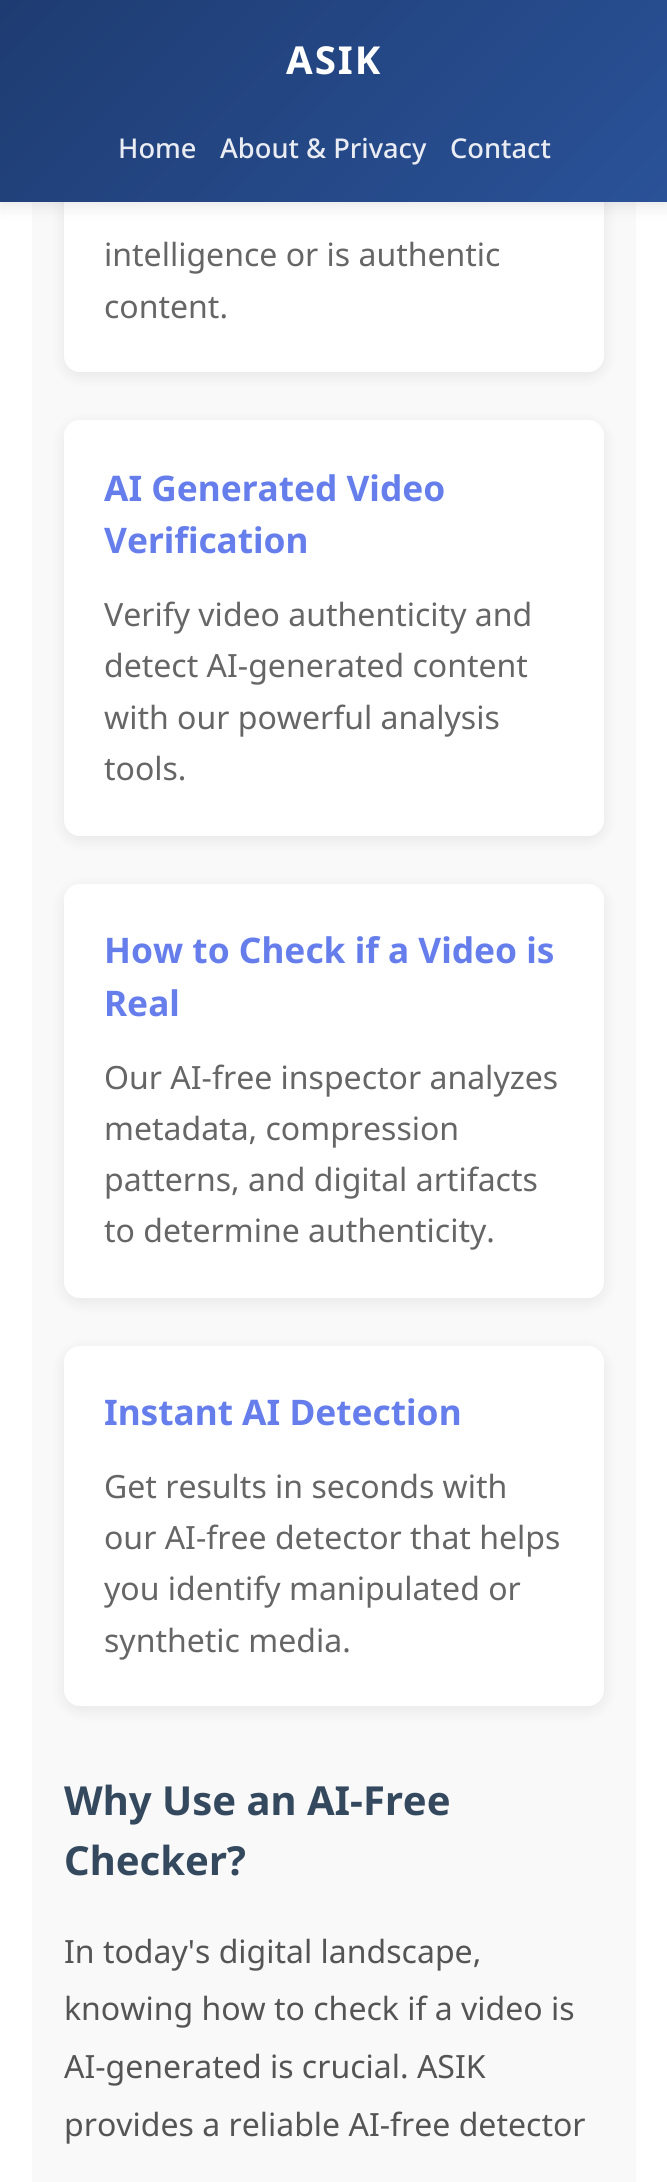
#include <cairo.h>
#include <math.h>
#include <stddef.h>


static void spaced_text(cairo_t *cr, double x, double y, const char *s, double letter, double word) {
    cairo_move_to(cr, x, y);
    while (*s) {
        char ch[5] = {0};
        int n = 0;
        do ch[n++] = *s++; while ((*s & 0xC0) == 0x80);
        cairo_show_text(cr, ch);
        cairo_rel_move_to(cr, letter + word * (*ch == ' '), 0);
    }
}

static void round_rect(cairo_t *cr, double x, double y, double w, double h, double r) {
    cairo_new_sub_path(cr);
    cairo_arc(cr, x + w - r, y + h - r, r, 0, M_PI / 2);
    cairo_arc(cr, x + r, y + h - r, r, M_PI / 2, M_PI);
    cairo_arc(cr, x + r, y + r, r, M_PI, 1.5 * M_PI);
    cairo_arc(cr, x + w - r, y + r, r, 1.5 * M_PI, 2 * M_PI);
    cairo_close_path(cr);
}

static void shadow(cairo_t *cr, double x, double y, double w, double h, double r, double blur, double alpha) {
    cairo_push_group_with_content(cr, CAIRO_CONTENT_ALPHA);
    cairo_set_operator(cr, CAIRO_OPERATOR_SOURCE);
    for (int i = 15; i >= -15 && fmin(w, h) + blur * i / 3 > 0; i -= 2) {
        double e = blur * i / 6;
        cairo_set_source_rgba(cr, 0, 0, 0, alpha * erfc((i - 1) / 8.5) / 2);
        round_rect(cr, x - e, y - e, w + 2 * e, h + 2 * e, fmax(0, fmin(r + e + blur * .6, fmin(w, h) / 2 + e)));
        cairo_fill(cr);
    }
    cairo_pattern_t *soft = cairo_pop_group(cr);
    cairo_mask(cr, soft);
    cairo_pattern_destroy(soft);
}

int main(void) {
    cairo_surface_t *surface = cairo_image_surface_create(CAIRO_FORMAT_RGB24, 667, 2182);
    cairo_t *cr = cairo_create(surface);
    cairo_font_options_t *options = cairo_font_options_create();
    cairo_font_options_set_hint_metrics(options, CAIRO_HINT_METRICS_OFF);
    cairo_font_options_set_hint_style(options, CAIRO_HINT_STYLE_NONE);
    cairo_set_font_options(cr, options);
    cairo_set_miter_limit(cr, 4);
    cairo_pattern_t *gradient;
    cairo_set_source_rgb(cr, 1, 1, 1);
    cairo_paint(cr);
    cairo_set_source_rgb(cr, 0.973, 0.976, 0.98);
    cairo_rectangle(cr, 32, 202, 604, 1980);
    cairo_fill(cr);
    cairo_set_source_rgb(cr, 0, 0, 0);
    shadow(cr, 64, -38, 540, 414, 16, 8, 0.08);
    cairo_set_source_rgb(cr, 1, 1, 1);
    round_rect(cr, 64, -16, 540, 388, 16);
    cairo_fill(cr);
    cairo_set_source_rgb(cr, 0, 0, 0);
    shadow(cr, 0, 4, 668, 202, 0, 8, 0.1);
    gradient = cairo_pattern_create_linear(117, -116, 552, 319);
    cairo_pattern_add_color_stop_rgba(gradient, 0, 0.118, 0.235, 0.447, 1);
    cairo_pattern_add_color_stop_rgba(gradient, 1, 0.165, 0.322, 0.596, 1);
    cairo_set_source(cr, gradient);
    cairo_pattern_destroy(gradient);
    cairo_rectangle(cr, 0, 0, 667, 202);
    cairo_fill(cr);
    cairo_select_font_face(cr, "Noto Sans", CAIRO_FONT_SLANT_NORMAL, CAIRO_FONT_WEIGHT_BOLD);
    cairo_set_font_size(cr, 38.5);
    cairo_set_source_rgb(cr, 1, 1, 1);
    spaced_text(cr, 286, 74, "ASIK", 2, 0);
    cairo_select_font_face(cr, "Noto Sans Medium", CAIRO_FONT_SLANT_NORMAL, CAIRO_FONT_WEIGHT_NORMAL);
    cairo_set_font_size(cr, 27.25);
    cairo_set_source_rgb(cr, 0.914, 0.925, 0.949);
    cairo_move_to(cr, 118, 158);
    cairo_show_text(cr, "Home");
    cairo_move_to(cr, 220, 158);
    cairo_show_text(cr, "About & Privacy");
    cairo_move_to(cr, 450, 158);
    cairo_show_text(cr, "Contact");
    cairo_select_font_face(cr, "Noto Sans", CAIRO_FONT_SLANT_NORMAL, CAIRO_FONT_WEIGHT_NORMAL);
    cairo_set_font_size(cr, 32);
    cairo_set_source_rgb(cr, 0.4, 0.4, 0.4);
    cairo_move_to(cr, 104, 266);
    cairo_show_text(cr, "intelligence or is authentic");
    cairo_move_to(cr, 104, 318);
    cairo_show_text(cr, "content.");
    cairo_set_source_rgb(cr, 0, 0, 0);
    shadow(cr, 64, 424, 540, 416, 16, 8, 0.08);
    cairo_set_source_rgb(cr, 1, 1, 1);
    round_rect(cr, 64, 420, 540, 416, 16);
    cairo_fill(cr);
    cairo_select_font_face(cr, "Noto Sans", CAIRO_FONT_SLANT_NORMAL, CAIRO_FONT_WEIGHT_BOLD);
    cairo_set_font_size(cr, 35.25);
    cairo_set_source_rgb(cr, 0.4, 0.494, 0.918);
    cairo_move_to(cr, 104, 501);
    cairo_show_text(cr, "AI Generated Video");
    cairo_move_to(cr, 104, 553);
    cairo_show_text(cr, "Verification");
    cairo_select_font_face(cr, "Noto Sans", CAIRO_FONT_SLANT_NORMAL, CAIRO_FONT_WEIGHT_NORMAL);
    cairo_set_font_size(cr, 32);
    cairo_set_source_rgb(cr, 0.4, 0.4, 0.4);
    cairo_move_to(cr, 104, 626);
    cairo_show_text(cr, "Verify video authenticity and");
    cairo_move_to(cr, 104, 677);
    cairo_show_text(cr, "detect AI-generated content");
    cairo_move_to(cr, 104, 729);
    cairo_show_text(cr, "with our powerful analysis");
    cairo_move_to(cr, 104, 780);
    cairo_show_text(cr, "tools.");
    cairo_set_source_rgb(cr, 0, 0, 0);
    shadow(cr, 64, 888, 540, 414, 16, 8, 0.08);
    cairo_set_source_rgb(cr, 1, 1, 1);
    round_rect(cr, 64, 884, 540, 414, 16);
    cairo_fill(cr);
    cairo_select_font_face(cr, "Noto Sans", CAIRO_FONT_SLANT_NORMAL, CAIRO_FONT_WEIGHT_BOLD);
    cairo_set_font_size(cr, 35.25);
    cairo_set_source_rgb(cr, 0.4, 0.494, 0.918);
    cairo_move_to(cr, 104, 963);
    cairo_show_text(cr, "How to Check if a Video is");
    cairo_move_to(cr, 104, 1016);
    cairo_show_text(cr, "Real");
    cairo_select_font_face(cr, "Noto Sans", CAIRO_FONT_SLANT_NORMAL, CAIRO_FONT_WEIGHT_NORMAL);
    cairo_set_font_size(cr, 32);
    cairo_set_source_rgb(cr, 0.4, 0.4, 0.4);
    cairo_move_to(cr, 104, 1089);
    cairo_show_text(cr, "Our AI-free inspector analyzes");
    cairo_move_to(cr, 104, 1140);
    cairo_show_text(cr, "metadata, compression");
    cairo_move_to(cr, 104, 1191);
    cairo_show_text(cr, "patterns, and digital artifacts");
    cairo_move_to(cr, 104, 1242);
    cairo_show_text(cr, "to determine authenticity.");
    cairo_set_source_rgb(cr, 0, 0, 0);
    shadow(cr, 64, 1350, 540, 360, 16, 8, 0.08);
    cairo_set_source_rgb(cr, 1, 1, 1);
    round_rect(cr, 64, 1346, 540, 360, 16);
    cairo_fill(cr);
    cairo_select_font_face(cr, "Noto Sans", CAIRO_FONT_SLANT_NORMAL, CAIRO_FONT_WEIGHT_BOLD);
    cairo_set_font_size(cr, 35.25);
    cairo_set_source_rgb(cr, 0.4, 0.494, 0.918);
    cairo_move_to(cr, 104, 1425);
    cairo_show_text(cr, "Instant AI Detection");
    cairo_select_font_face(cr, "Noto Sans", CAIRO_FONT_SLANT_NORMAL, CAIRO_FONT_WEIGHT_NORMAL);
    cairo_set_font_size(cr, 32);
    cairo_set_source_rgb(cr, 0.4, 0.4, 0.4);
    cairo_move_to(cr, 104, 1498);
    cairo_show_text(cr, "Get results in seconds with");
    cairo_move_to(cr, 104, 1549);
    cairo_show_text(cr, "our AI-free detector that helps");
    cairo_move_to(cr, 104, 1600);
    cairo_show_text(cr, "you identify manipulated or");
    cairo_move_to(cr, 104, 1652);
    cairo_show_text(cr, "synthetic media.");
    cairo_select_font_face(cr, "Noto Sans", CAIRO_FONT_SLANT_NORMAL, CAIRO_FONT_WEIGHT_BOLD);
    cairo_set_font_size(cr, 40);
    cairo_set_source_rgb(cr, 0.204, 0.286, 0.369);
    cairo_move_to(cr, 64, 1815);
    cairo_show_text(cr, "Why Use an AI-Free");
    cairo_move_to(cr, 64, 1875);
    cairo_show_text(cr, "Checker?");
    cairo_select_font_face(cr, "Noto Sans", CAIRO_FONT_SLANT_NORMAL, CAIRO_FONT_WEIGHT_NORMAL);
    cairo_set_font_size(cr, 32);
    cairo_set_source_rgb(cr, 0.333, 0.333, 0.333);
    cairo_move_to(cr, 64, 1963);
    cairo_show_text(cr, "In today's digital landscape,");
    cairo_move_to(cr, 64, 2020);
    cairo_show_text(cr, "knowing how to check if a video is");
    cairo_move_to(cr, 64, 2078);
    cairo_show_text(cr, "AI-generated is crucial. ASIK");
    cairo_move_to(cr, 64, 2136);
    cairo_show_text(cr, "provides a reliable AI-free detector");
    cairo_surface_write_to_png(surface, "page.png");
    cairo_font_options_destroy(options);
    cairo_destroy(cr);
    cairo_surface_destroy(surface);
    return 0;
}
